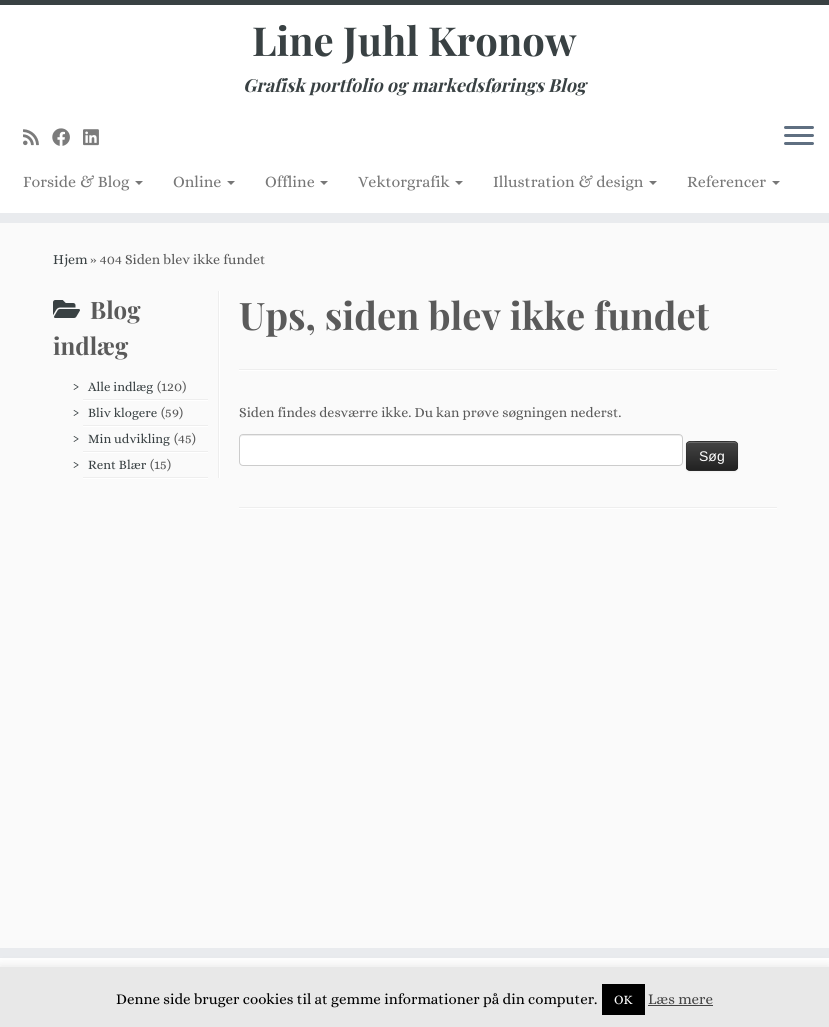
#include <cairo.h>
#include <math.h>
#include <stddef.h>


static void round_rect(cairo_t *cr, double x, double y, double w, double h, double r) {
    cairo_new_sub_path(cr);
    cairo_arc(cr, x + w - r, y + h - r, r, 0, M_PI / 2);
    cairo_arc(cr, x + r, y + h - r, r, M_PI / 2, M_PI);
    cairo_arc(cr, x + r, y + r, r, M_PI, 1.5 * M_PI);
    cairo_arc(cr, x + w - r, y + r, r, 1.5 * M_PI, 2 * M_PI);
    cairo_close_path(cr);
}

static void shadow(cairo_t *cr, double x, double y, double w, double h, double r, double blur, double alpha) {
    cairo_push_group_with_content(cr, CAIRO_CONTENT_ALPHA);
    cairo_set_operator(cr, CAIRO_OPERATOR_SOURCE);
    for (int i = 15; i >= -15 && fmin(w, h) + blur * i / 3 > 0; i -= 2) {
        double e = blur * i / 6;
        cairo_set_source_rgba(cr, 0, 0, 0, alpha * erfc((i - 1) / 8.5) / 2);
        round_rect(cr, x - e, y - e, w + 2 * e, h + 2 * e, fmax(0, fmin(r + e + blur * .6, fmin(w, h) / 2 + e)));
        cairo_fill(cr);
    }
    cairo_pattern_t *soft = cairo_pop_group(cr);
    cairo_mask(cr, soft);
    cairo_pattern_destroy(soft);
}

static void picture(cairo_t *cr, const char *path, double x, double y, double w, double h) {
    cairo_surface_t *image = cairo_image_surface_create_from_png(path);
    cairo_save(cr);
    cairo_set_source_surface(cr, image, x, y);
    cairo_rectangle(cr, x, y, w, h);
    cairo_fill(cr);
    cairo_restore(cr);
    cairo_surface_destroy(image);
}

int main(void) {
    cairo_surface_t *surface = cairo_image_surface_create(CAIRO_FORMAT_RGB24, 829, 1027);
    cairo_t *cr = cairo_create(surface);
    cairo_font_options_t *options = cairo_font_options_create();
    cairo_font_options_set_hint_metrics(options, CAIRO_HINT_METRICS_OFF);
    cairo_font_options_set_hint_style(options, CAIRO_HINT_STYLE_NONE);
    cairo_set_font_options(cr, options);
    cairo_set_miter_limit(cr, 4);
    cairo_pattern_t *gradient;
    cairo_set_source_rgb(cr, 0.98, 0.98, 0.98);
    cairo_paint(cr);
    cairo_set_source_rgb(cr, 1, 1, 1);
    cairo_rectangle(cr, 0, 5, 829, 208);
    cairo_fill(cr);
    cairo_set_source_rgb(cr, 0.224, 0.255, 0.263);
    cairo_rectangle(cr, 0, 0, 829, 5);
    cairo_fill(cr);
    cairo_set_source_rgb(cr, 0.914, 0.918, 0.933);
    cairo_rectangle(cr, 0, 213, 829, 10);
    cairo_fill(cr);
    cairo_select_font_face(cr, "Playfair Display", CAIRO_FONT_SLANT_NORMAL, CAIRO_FONT_WEIGHT_BOLD);
    cairo_set_font_size(cr, 40);
    cairo_set_source_rgb(cr, 0.224, 0.255, 0.263);
    cairo_move_to(cr, 252, 56);
    cairo_show_text(cr, "Line Juhl Kronow");
    cairo_select_font_face(cr, "Playfair Display", CAIRO_FONT_SLANT_ITALIC, CAIRO_FONT_WEIGHT_BOLD);
    cairo_set_font_size(cr, 18);
    cairo_move_to(cr, 243, 92);
    cairo_show_text(cr, "Grafisk portfolio og markedsførings Blog");
    picture(cr, "img1.png", 23, 129, 16, 17);
    picture(cr, "img2.png", 52, 128, 18, 18);
    picture(cr, "img3.png", 83, 129, 16, 17);
    cairo_set_source_rgb(cr, 0.373, 0.435, 0.506);
    round_rect(cr, 784, 126, 30, 3, 1.5);
    cairo_fill(cr);
    round_rect(cr, 784, 134, 30, 3, 1.5);
    cairo_fill(cr);
    round_rect(cr, 784, 142, 30, 3, 1.5);
    cairo_fill(cr);
    cairo_select_font_face(cr, "Alice", CAIRO_FONT_SLANT_NORMAL, CAIRO_FONT_WEIGHT_NORMAL);
    cairo_set_font_size(cr, 16);
    cairo_set_source_rgb(cr, 0.467, 0.467, 0.467);
    cairo_move_to(cr, 23, 187);
    cairo_show_text(cr, "Forside & Blog");
    cairo_new_path(cr);
    cairo_move_to(cr, 135, 181);
    cairo_line_to(cr, 143, 181);
    cairo_line_to(cr, 139, 185);
    cairo_close_path(cr);
    cairo_fill(cr);
    cairo_move_to(cr, 173, 187);
    cairo_show_text(cr, "Online");
    cairo_new_path(cr);
    cairo_move_to(cr, 227, 181);
    cairo_line_to(cr, 235, 181);
    cairo_line_to(cr, 231, 185);
    cairo_close_path(cr);
    cairo_fill(cr);
    cairo_move_to(cr, 265, 187);
    cairo_show_text(cr, "Offline");
    cairo_new_path(cr);
    cairo_move_to(cr, 320, 181);
    cairo_line_to(cr, 328, 181);
    cairo_line_to(cr, 324, 185);
    cairo_close_path(cr);
    cairo_fill(cr);
    cairo_move_to(cr, 358, 187);
    cairo_show_text(cr, "Vektorgrafik");
    cairo_new_path(cr);
    cairo_move_to(cr, 455, 181);
    cairo_line_to(cr, 463, 181);
    cairo_line_to(cr, 459, 185);
    cairo_close_path(cr);
    cairo_fill(cr);
    cairo_move_to(cr, 493, 187);
    cairo_show_text(cr, "Illustration & design");
    cairo_new_path(cr);
    cairo_move_to(cr, 649, 181);
    cairo_line_to(cr, 657, 181);
    cairo_line_to(cr, 653, 185);
    cairo_close_path(cr);
    cairo_fill(cr);
    cairo_move_to(cr, 687, 187);
    cairo_show_text(cr, "Referencer");
    cairo_new_path(cr);
    cairo_move_to(cr, 772, 181);
    cairo_line_to(cr, 780, 181);
    cairo_line_to(cr, 776, 185);
    cairo_close_path(cr);
    cairo_fill(cr);
    cairo_set_font_size(cr, 14);
    cairo_set_source_rgb(cr, 0.224, 0.255, 0.263);
    cairo_move_to(cr, 53, 264);
    cairo_show_text(cr, "Hjem");
    cairo_set_source_rgb(cr, 0.353, 0.353, 0.353);
    cairo_move_to(cr, 90, 264);
    cairo_show_text(cr, "» 404 Siden blev ikke fundet");
    cairo_set_source_rgb(cr, 0.933, 0.933, 0.933);
    cairo_rectangle(cr, 218, 291, 1, 187);
    cairo_fill(cr);
    picture(cr, "img4.png", 53, 300, 27, 18);
    cairo_select_font_face(cr, "Playfair Display", CAIRO_FONT_SLANT_NORMAL, CAIRO_FONT_WEIGHT_BOLD);
    cairo_set_font_size(cr, 24);
    cairo_set_source_rgb(cr, 0.353, 0.353, 0.353);
    cairo_move_to(cr, 90, 319);
    cairo_show_text(cr, "Blog");
    cairo_move_to(cr, 53, 355);
    cairo_show_text(cr, "indlæg");
    cairo_set_source_rgb(cr, 0.933, 0.933, 0.933);
    cairo_rectangle(cr, 83, 399, 125, 1);
    cairo_fill(cr);
    cairo_select_font_face(cr, "Alice", CAIRO_FONT_SLANT_NORMAL, CAIRO_FONT_WEIGHT_NORMAL);
    cairo_set_font_size(cr, 14);
    cairo_set_source_rgb(cr, 0.224, 0.255, 0.263);
    cairo_move_to(cr, 73, 391);
    cairo_show_text(cr, "›");
    cairo_set_font_size(cr, 13);
    cairo_move_to(cr, 88, 391);
    cairo_show_text(cr, "Alle indlæg");
    cairo_set_font_size(cr, 14);
    cairo_set_source_rgb(cr, 0.353, 0.353, 0.353);
    cairo_move_to(cr, 157, 391);
    cairo_show_text(cr, "(120)");
    cairo_set_source_rgb(cr, 1, 1, 1);
    cairo_rectangle(cr, 83, 400, 125, 1);
    cairo_fill(cr);
    cairo_set_source_rgb(cr, 0.933, 0.933, 0.933);
    cairo_rectangle(cr, 83, 425, 125, 1);
    cairo_fill(cr);
    cairo_set_source_rgb(cr, 0.224, 0.255, 0.263);
    cairo_move_to(cr, 73, 417);
    cairo_show_text(cr, "›");
    cairo_set_font_size(cr, 13);
    cairo_move_to(cr, 88, 417);
    cairo_show_text(cr, "Bliv klogere");
    cairo_set_font_size(cr, 14);
    cairo_set_source_rgb(cr, 0.353, 0.353, 0.353);
    cairo_move_to(cr, 161, 417);
    cairo_show_text(cr, "(59)");
    cairo_set_source_rgb(cr, 1, 1, 1);
    cairo_rectangle(cr, 83, 426, 125, 1);
    cairo_fill(cr);
    cairo_set_source_rgb(cr, 0.933, 0.933, 0.933);
    cairo_rectangle(cr, 83, 451, 125, 1);
    cairo_fill(cr);
    cairo_set_source_rgb(cr, 0.224, 0.255, 0.263);
    cairo_move_to(cr, 73, 443);
    cairo_show_text(cr, "›");
    cairo_set_font_size(cr, 13);
    cairo_move_to(cr, 88, 443);
    cairo_show_text(cr, "Min udvikling");
    cairo_set_font_size(cr, 14);
    cairo_set_source_rgb(cr, 0.353, 0.353, 0.353);
    cairo_move_to(cr, 174, 443);
    cairo_show_text(cr, "(45)");
    cairo_set_source_rgb(cr, 1, 1, 1);
    cairo_rectangle(cr, 83, 452, 125, 1);
    cairo_fill(cr);
    cairo_set_source_rgb(cr, 0.933, 0.933, 0.933);
    cairo_rectangle(cr, 83, 477, 125, 1);
    cairo_fill(cr);
    cairo_set_source_rgb(cr, 0.224, 0.255, 0.263);
    cairo_move_to(cr, 73, 469);
    cairo_show_text(cr, "›");
    cairo_set_font_size(cr, 13);
    cairo_move_to(cr, 88, 469);
    cairo_show_text(cr, "Rent Blær");
    cairo_set_font_size(cr, 14);
    cairo_set_source_rgb(cr, 0.353, 0.353, 0.353);
    cairo_move_to(cr, 150, 469);
    cairo_show_text(cr, "(15)");
    cairo_set_source_rgb(cr, 1, 1, 1);
    cairo_rectangle(cr, 83, 478, 125, 1);
    cairo_fill(cr);
    cairo_rectangle(cr, 219, 291, 1, 187);
    cairo_fill(cr);
    cairo_select_font_face(cr, "Playfair Display", CAIRO_FONT_SLANT_NORMAL, CAIRO_FONT_WEIGHT_BOLD);
    cairo_set_font_size(cr, 38);
    cairo_set_source_rgb(cr, 0.353, 0.353, 0.353);
    cairo_move_to(cr, 239, 330);
    cairo_show_text(cr, "Ups, siden blev ikke fundet");
    cairo_set_source_rgb(cr, 0.933, 0.933, 0.933);
    cairo_rectangle(cr, 239, 369, 538, 1);
    cairo_fill(cr);
    cairo_set_source_rgb(cr, 1, 1, 1);
    cairo_rectangle(cr, 239, 370, 538, 1);
    cairo_fill(cr);
    cairo_select_font_face(cr, "Alice", CAIRO_FONT_SLANT_NORMAL, CAIRO_FONT_WEIGHT_NORMAL);
    cairo_set_font_size(cr, 14);
    cairo_set_source_rgb(cr, 0.353, 0.353, 0.353);
    cairo_move_to(cr, 239, 417);
    cairo_show_text(cr, "Siden findes desværre ikke. Du kan prøve søgningen nederst.");
    cairo_set_source_rgb(cr, 1, 1, 1);
    round_rect(cr, 239, 434, 444, 32, 4);
    cairo_fill(cr);
    cairo_set_source_rgb(cr, 0.925, 0.925, 0.925);
    cairo_new_path(cr);
    cairo_move_to(cr, 243, 436);
    cairo_line_to(cr, 679, 436);
    cairo_curve_to(cr, 681, 436, 682, 437, 682, 439);
    cairo_line_to(cr, 682, 437);
    cairo_line_to(cr, 680, 435);
    cairo_line_to(cr, 243, 435);
    cairo_curve_to(cr, 241, 435, 240, 437, 240, 439);
    cairo_curve_to(cr, 240, 437, 241, 436, 243, 436);
    cairo_close_path(cr);
    cairo_fill(cr);
    round_rect(cr, 239.5, 434.5, 443, 31, 3.5);
    cairo_set_source_rgb(cr, 0.8, 0.8, 0.8);
    cairo_set_line_width(cr, 1);
    cairo_stroke(cr);
    cairo_set_source_rgb(cr, 0, 0, 0);
    shadow(cr, 686, 442, 52, 30, 4, 1, 0.05);
    cairo_set_source_rgb(cr, 0.212, 0.212, 0.212);
    round_rect(cr, 686, 441, 52, 30, 4);
    cairo_fill(cr);
    cairo_save(cr);
    round_rect(cr, 686, 441, 52, 30, 4);
    cairo_clip(cr);
    gradient = cairo_pattern_create_linear(712, 442, 712, 470);
    cairo_pattern_add_color_stop_rgba(gradient, 0, 0.267, 0.267, 0.267, 1);
    cairo_pattern_add_color_stop_rgba(gradient, 1, 0.133, 0.133, 0.133, 1);
    cairo_set_source(cr, gradient);
    cairo_pattern_destroy(gradient);
    cairo_rectangle(cr, 686, 442, 52, 28);
    cairo_fill(cr);
    cairo_restore(cr);
    cairo_set_source_rgb(cr, 0.412, 0.412, 0.412);
    cairo_new_path(cr);
    cairo_move_to(cr, 690, 443);
    cairo_line_to(cr, 734, 443);
    cairo_curve_to(cr, 736, 443, 737, 444, 737, 446);
    cairo_curve_to(cr, 737, 440, 731, 442, 727, 442);
    cairo_line_to(cr, 697, 442);
    cairo_curve_to(cr, 693, 442, 687, 440, 687, 446);
    cairo_curve_to(cr, 687, 444, 688, 443, 690, 443);
    cairo_close_path(cr);
    cairo_fill(cr);
    cairo_new_path(cr);
    cairo_move_to(cr, 736.5, 469.5);
    cairo_curve_to(cr, 736, 470, 735, 470.5, 734, 470.5);
    cairo_line_to(cr, 690, 470.5);
    cairo_curve_to(cr, 689, 470.5, 688, 470, 687.5, 469.5);
    cairo_set_source_rgba(cr, 0, 0, 0, 0.25);
    cairo_stroke(cr);
    cairo_new_path(cr);
    cairo_move_to(cr, 687.5, 469.5);
    cairo_curve_to(cr, 685.5, 467.5, 686.5, 459, 686.5, 456);
    cairo_curve_to(cr, 686.5, 441.5, 683.5, 441.5, 697.5, 441.5);
    cairo_line_to(cr, 726.5, 441.5);
    cairo_curve_to(cr, 740.5, 441.5, 737.5, 441.5, 737.5, 456);
    cairo_curve_to(cr, 737.5, 459, 738.5, 467.5, 736.5, 469.5);
    cairo_set_source_rgba(cr, 0, 0, 0, 0.1);
    cairo_stroke(cr);
    cairo_select_font_face(cr, "Liberation Sans", CAIRO_FONT_SLANT_NORMAL, CAIRO_FONT_WEIGHT_NORMAL);
    cairo_set_source_rgb(cr, 1, 1, 1);
    cairo_move_to(cr, 699, 461);
    cairo_show_text(cr, "Søg");
    cairo_set_source_rgb(cr, 0.933, 0.933, 0.933);
    cairo_rectangle(cr, 239, 507, 538, 1);
    cairo_fill(cr);
    cairo_set_source_rgb(cr, 1, 1, 1);
    cairo_rectangle(cr, 239, 508, 538, 1);
    cairo_fill(cr);
    cairo_set_source_rgb(cr, 0.914, 0.918, 0.933);
    cairo_rectangle(cr, 0, 948, 829, 10);
    cairo_fill(cr);
    cairo_set_source_rgb(cr, 1, 1, 1);
    cairo_rectangle(cr, 0, 958, 829, 9);
    cairo_fill(cr);
    cairo_set_source_rgb(cr, 0.675, 0.671, 0.671);
    shadow(cr, 0, 966, 829, 60, 0, 5, 0.3);
    cairo_set_source_rgb(cr, 0.91, 0.91, 0.91);
    cairo_rectangle(cr, 0, 967, 829, 60);
    cairo_fill(cr);
    cairo_select_font_face(cr, "Alice", CAIRO_FONT_SLANT_NORMAL, CAIRO_FONT_WEIGHT_NORMAL);
    cairo_set_font_size(cr, 15);
    cairo_set_source_rgb(cr, 0, 0, 0);
    cairo_move_to(cr, 116, 1004);
    cairo_show_text(cr, "Denne side bruger cookies til at gemme informationer på din computer.");
    cairo_rectangle(cr, 602, 984, 43, 31);
    cairo_fill(cr);
    cairo_set_font_size(cr, 13);
    cairo_set_source_rgb(cr, 1, 1, 1);
    cairo_move_to(cr, 614, 1004);
    cairo_show_text(cr, "OK");
    cairo_set_font_size(cr, 15);
    cairo_set_source_rgb(cr, 0.267, 0.267, 0.267);
    cairo_move_to(cr, 648, 1004);
    cairo_show_text(cr, "Læs mere");
    cairo_rectangle(cr, 648, 1005, 65, 1);
    cairo_fill(cr);
    cairo_surface_write_to_png(surface, "page.png");
    cairo_font_options_destroy(options);
    cairo_destroy(cr);
    cairo_surface_destroy(surface);
    return 0;
}
